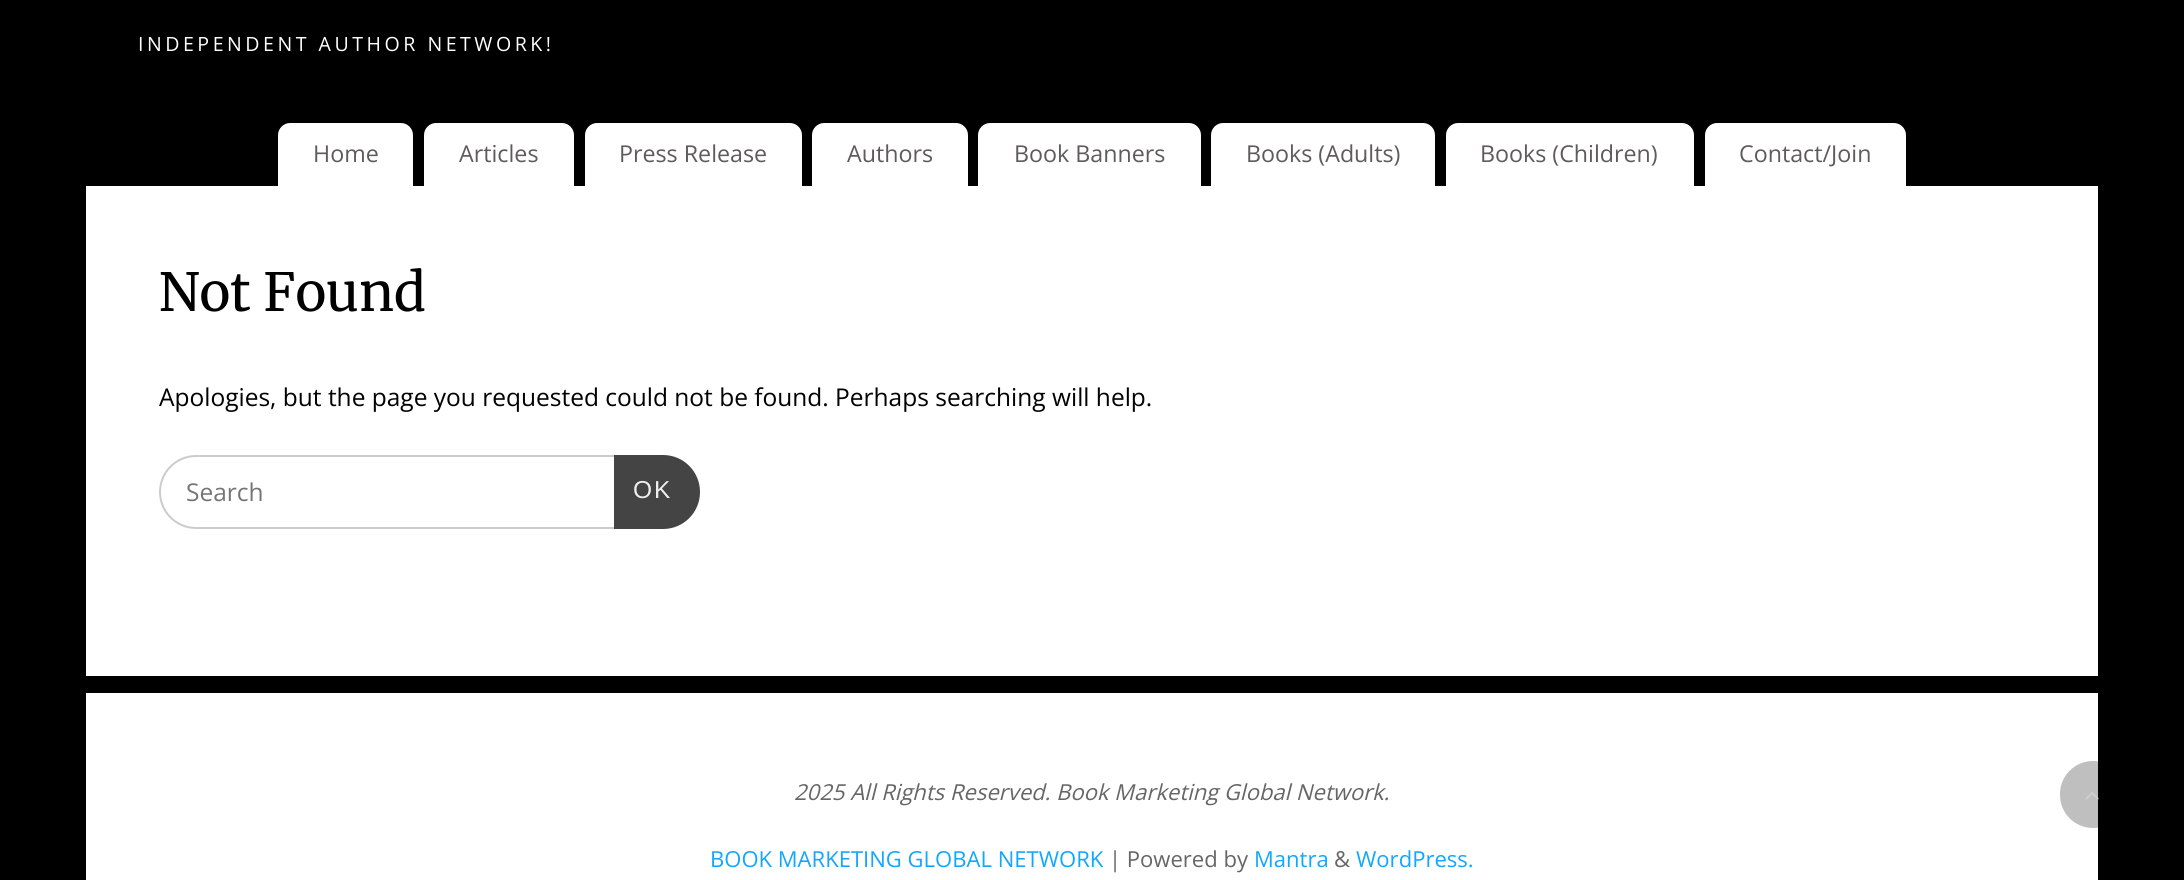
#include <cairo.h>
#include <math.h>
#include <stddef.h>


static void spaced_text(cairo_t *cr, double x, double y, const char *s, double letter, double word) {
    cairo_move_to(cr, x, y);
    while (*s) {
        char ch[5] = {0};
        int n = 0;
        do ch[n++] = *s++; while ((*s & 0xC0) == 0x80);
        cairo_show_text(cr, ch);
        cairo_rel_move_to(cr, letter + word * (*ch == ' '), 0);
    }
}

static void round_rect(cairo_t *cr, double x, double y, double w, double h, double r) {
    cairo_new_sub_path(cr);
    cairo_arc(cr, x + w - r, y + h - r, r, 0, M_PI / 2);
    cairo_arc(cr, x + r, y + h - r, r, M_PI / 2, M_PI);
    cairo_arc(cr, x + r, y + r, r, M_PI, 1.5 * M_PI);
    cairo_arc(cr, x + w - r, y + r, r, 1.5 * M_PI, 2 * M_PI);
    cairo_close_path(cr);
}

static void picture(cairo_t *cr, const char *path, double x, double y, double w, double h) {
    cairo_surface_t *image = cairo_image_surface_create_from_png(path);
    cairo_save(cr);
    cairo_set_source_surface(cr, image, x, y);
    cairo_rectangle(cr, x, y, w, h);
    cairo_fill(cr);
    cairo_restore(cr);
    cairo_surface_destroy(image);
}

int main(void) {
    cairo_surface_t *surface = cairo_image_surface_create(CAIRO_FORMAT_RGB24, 2184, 880);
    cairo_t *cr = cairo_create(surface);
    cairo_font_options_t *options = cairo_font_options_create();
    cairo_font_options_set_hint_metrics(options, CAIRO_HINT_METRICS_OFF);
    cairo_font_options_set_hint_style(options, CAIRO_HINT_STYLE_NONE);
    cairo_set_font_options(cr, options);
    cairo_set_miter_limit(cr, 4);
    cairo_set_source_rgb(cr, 0, 0, 0);
    cairo_paint(cr);
    cairo_select_font_face(cr, "Open Sans", CAIRO_FONT_SLANT_NORMAL, CAIRO_FONT_WEIGHT_NORMAL);
    cairo_set_font_size(cr, 19.6);
    cairo_set_source_rgb(cr, 1, 1, 1);
    spaced_text(cr, 138, 51, "INDEPENDENT AUTHOR NETWORK!", 3.5, 0);
    cairo_new_path(cr);
    cairo_move_to(cr, 290, 123);
    cairo_line_to(cr, 401, 123);
    cairo_curve_to(cr, 407.5, 123, 413, 128.5, 413, 135);
    cairo_line_to(cr, 413, 186);
    cairo_line_to(cr, 278, 186);
    cairo_line_to(cr, 278, 135);
    cairo_curve_to(cr, 278, 128.5, 283.5, 123, 290, 123);
    cairo_close_path(cr);
    cairo_fill(cr);
    cairo_set_font_size(cr, 23.25);
    cairo_set_source_rgb(cr, 0.373, 0.357, 0.357);
    cairo_move_to(cr, 313, 162);
    cairo_show_text(cr, "Home");
    cairo_set_source_rgb(cr, 1, 1, 1);
    cairo_new_path(cr);
    cairo_move_to(cr, 436, 123);
    cairo_line_to(cr, 562, 123);
    cairo_curve_to(cr, 568.5, 123, 574, 128.5, 574, 135);
    cairo_line_to(cr, 574, 186);
    cairo_line_to(cr, 424, 186);
    cairo_line_to(cr, 424, 135);
    cairo_curve_to(cr, 424, 128.5, 429.5, 123, 436, 123);
    cairo_close_path(cr);
    cairo_fill(cr);
    cairo_set_source_rgb(cr, 0.373, 0.357, 0.357);
    cairo_move_to(cr, 459, 162);
    cairo_show_text(cr, "Articles");
    cairo_set_source_rgb(cr, 1, 1, 1);
    cairo_new_path(cr);
    cairo_move_to(cr, 597, 123);
    cairo_line_to(cr, 790, 123);
    cairo_curve_to(cr, 796.5, 123, 802, 128.5, 802, 135);
    cairo_line_to(cr, 802, 186);
    cairo_line_to(cr, 585, 186);
    cairo_line_to(cr, 585, 135);
    cairo_curve_to(cr, 585, 128.5, 590.5, 123, 597, 123);
    cairo_close_path(cr);
    cairo_fill(cr);
    cairo_set_source_rgb(cr, 0.373, 0.357, 0.357);
    cairo_move_to(cr, 619, 162);
    cairo_show_text(cr, "Press Release");
    cairo_set_source_rgb(cr, 1, 1, 1);
    cairo_new_path(cr);
    cairo_move_to(cr, 824, 123);
    cairo_line_to(cr, 956, 123);
    cairo_curve_to(cr, 962.5, 123, 968, 128.5, 968, 135);
    cairo_line_to(cr, 968, 186);
    cairo_line_to(cr, 812, 186);
    cairo_line_to(cr, 812, 135);
    cairo_curve_to(cr, 812, 128.5, 817.5, 123, 824, 123);
    cairo_close_path(cr);
    cairo_fill(cr);
    cairo_set_source_rgb(cr, 0.373, 0.357, 0.357);
    cairo_move_to(cr, 847, 162);
    cairo_show_text(cr, "Authors");
    cairo_set_source_rgb(cr, 1, 1, 1);
    cairo_new_path(cr);
    cairo_move_to(cr, 990, 123);
    cairo_line_to(cr, 1189, 123);
    cairo_curve_to(cr, 1195.5, 123, 1201, 128.5, 1201, 135);
    cairo_line_to(cr, 1201, 186);
    cairo_line_to(cr, 978, 186);
    cairo_line_to(cr, 978, 135);
    cairo_curve_to(cr, 978, 128.5, 983.5, 123, 990, 123);
    cairo_close_path(cr);
    cairo_fill(cr);
    cairo_set_source_rgb(cr, 0.373, 0.357, 0.357);
    cairo_move_to(cr, 1014, 162);
    cairo_show_text(cr, "Book Banners");
    cairo_set_source_rgb(cr, 1, 1, 1);
    cairo_new_path(cr);
    cairo_move_to(cr, 1223, 123);
    cairo_line_to(cr, 1423, 123);
    cairo_curve_to(cr, 1429.5, 123, 1435, 128.5, 1435, 135);
    cairo_line_to(cr, 1435, 186);
    cairo_line_to(cr, 1211, 186);
    cairo_line_to(cr, 1211, 135);
    cairo_curve_to(cr, 1211, 128.5, 1216.5, 123, 1223, 123);
    cairo_close_path(cr);
    cairo_fill(cr);
    cairo_set_source_rgb(cr, 0.373, 0.357, 0.357);
    cairo_move_to(cr, 1246, 162);
    cairo_show_text(cr, "Books (Adults)");
    cairo_set_source_rgb(cr, 1, 1, 1);
    cairo_new_path(cr);
    cairo_move_to(cr, 1458, 123);
    cairo_line_to(cr, 1682, 123);
    cairo_curve_to(cr, 1688.5, 123, 1694, 128.5, 1694, 135);
    cairo_line_to(cr, 1694, 186);
    cairo_line_to(cr, 1446, 186);
    cairo_line_to(cr, 1446, 135);
    cairo_curve_to(cr, 1446, 128.5, 1451.5, 123, 1458, 123);
    cairo_close_path(cr);
    cairo_fill(cr);
    cairo_set_source_rgb(cr, 0.373, 0.357, 0.357);
    cairo_move_to(cr, 1480, 162);
    cairo_show_text(cr, "Books (Children)");
    cairo_set_source_rgb(cr, 1, 1, 1);
    cairo_new_path(cr);
    cairo_move_to(cr, 1717, 123);
    cairo_line_to(cr, 1894, 123);
    cairo_curve_to(cr, 1900.5, 123, 1906, 128.5, 1906, 135);
    cairo_line_to(cr, 1906, 186);
    cairo_line_to(cr, 1705, 186);
    cairo_line_to(cr, 1705, 135);
    cairo_curve_to(cr, 1705, 128.5, 1710.5, 123, 1717, 123);
    cairo_close_path(cr);
    cairo_fill(cr);
    cairo_set_source_rgb(cr, 0.373, 0.357, 0.357);
    cairo_move_to(cr, 1739, 162);
    cairo_show_text(cr, "Contact/Join");
    cairo_set_source_rgb(cr, 1, 1, 1);
    cairo_rectangle(cr, 86, 186, 2012, 490);
    cairo_fill(cr);
    cairo_select_font_face(cr, "Merriweather", CAIRO_FONT_SLANT_NORMAL, CAIRO_FONT_WEIGHT_NORMAL);
    cairo_set_font_size(cr, 52.5);
    cairo_set_source_rgb(cr, 0, 0, 0);
    cairo_move_to(cr, 159, 311);
    cairo_show_text(cr, "Not Found");
    cairo_select_font_face(cr, "Open Sans", CAIRO_FONT_SLANT_NORMAL, CAIRO_FONT_WEIGHT_NORMAL);
    cairo_set_font_size(cr, 24.5);
    cairo_move_to(cr, 159, 406);
    cairo_show_text(cr, "Apologies, but the page you requested could not be found. Perhaps searching will help.");
    round_rect(cr, 160, 456, 523, 72, 36);
    cairo_set_source_rgb(cr, 0.8, 0.8, 0.8);
    cairo_stroke(cr);
    cairo_set_source_rgb(cr, 0.459, 0.459, 0.459);
    cairo_move_to(cr, 186, 501);
    cairo_show_text(cr, "Search");
    cairo_set_source_rgb(cr, 0.267, 0.267, 0.267);
    cairo_new_path(cr);
    cairo_move_to(cr, 614, 455);
    cairo_line_to(cr, 663, 455);
    cairo_curve_to(cr, 683.5, 455, 700, 471.5, 700, 492);
    cairo_curve_to(cr, 700, 512.5, 683.5, 529, 663, 529);
    cairo_line_to(cr, 614, 529);
    cairo_close_path(cr);
    cairo_fill(cr);
    cairo_select_font_face(cr, "Liberation Sans", CAIRO_FONT_SLANT_NORMAL, CAIRO_FONT_WEIGHT_NORMAL);
    cairo_set_source_rgb(cr, 0.933, 0.933, 0.933);
    spaced_text(cr, 633, 498, "OK", 2, 0);
    cairo_set_source_rgb(cr, 1, 1, 1);
    cairo_rectangle(cr, 86, 693, 2012, 187);
    cairo_fill(cr);
    cairo_select_font_face(cr, "Open Sans", CAIRO_FONT_SLANT_ITALIC, CAIRO_FONT_WEIGHT_NORMAL);
    cairo_set_font_size(cr, 22.05);
    cairo_set_source_rgb(cr, 0.4, 0.4, 0.4);
    cairo_move_to(cr, 794, 800);
    cairo_show_text(cr, "2025 All Rights Reserved. Book Marketing Global Network.");
    cairo_select_font_face(cr, "Open Sans", CAIRO_FONT_SLANT_NORMAL, CAIRO_FONT_WEIGHT_NORMAL);
    cairo_set_source_rgb(cr, 0.071, 0.655, 1);
    cairo_move_to(cr, 710, 867);
    cairo_show_text(cr, "BOOK MARKETING GLOBAL NETWORK");
    cairo_set_source_rgb(cr, 0.4, 0.4, 0.4);
    cairo_move_to(cr, 1109, 867);
    cairo_show_text(cr, "| Powered by");
    cairo_set_source_rgb(cr, 0.071, 0.655, 1);
    cairo_move_to(cr, 1254, 867);
    cairo_show_text(cr, "Mantra");
    cairo_set_source_rgb(cr, 0.4, 0.4, 0.4);
    cairo_move_to(cr, 1334, 867);
    cairo_show_text(cr, "&");
    cairo_set_source_rgb(cr, 0.071, 0.655, 1);
    cairo_move_to(cr, 1356, 867);
    cairo_show_text(cr, "WordPress.");
    cairo_set_source_rgba(cr, 0, 0, 0, 0.25);
    round_rect(cr, 2060, 761, 66, 67, 33);
    cairo_fill(cr);
    picture(cr, "img1.png", 2085, 792, 14, 8);
    cairo_surface_write_to_png(surface, "page.png");
    cairo_font_options_destroy(options);
    cairo_destroy(cr);
    cairo_surface_destroy(surface);
    return 0;
}
